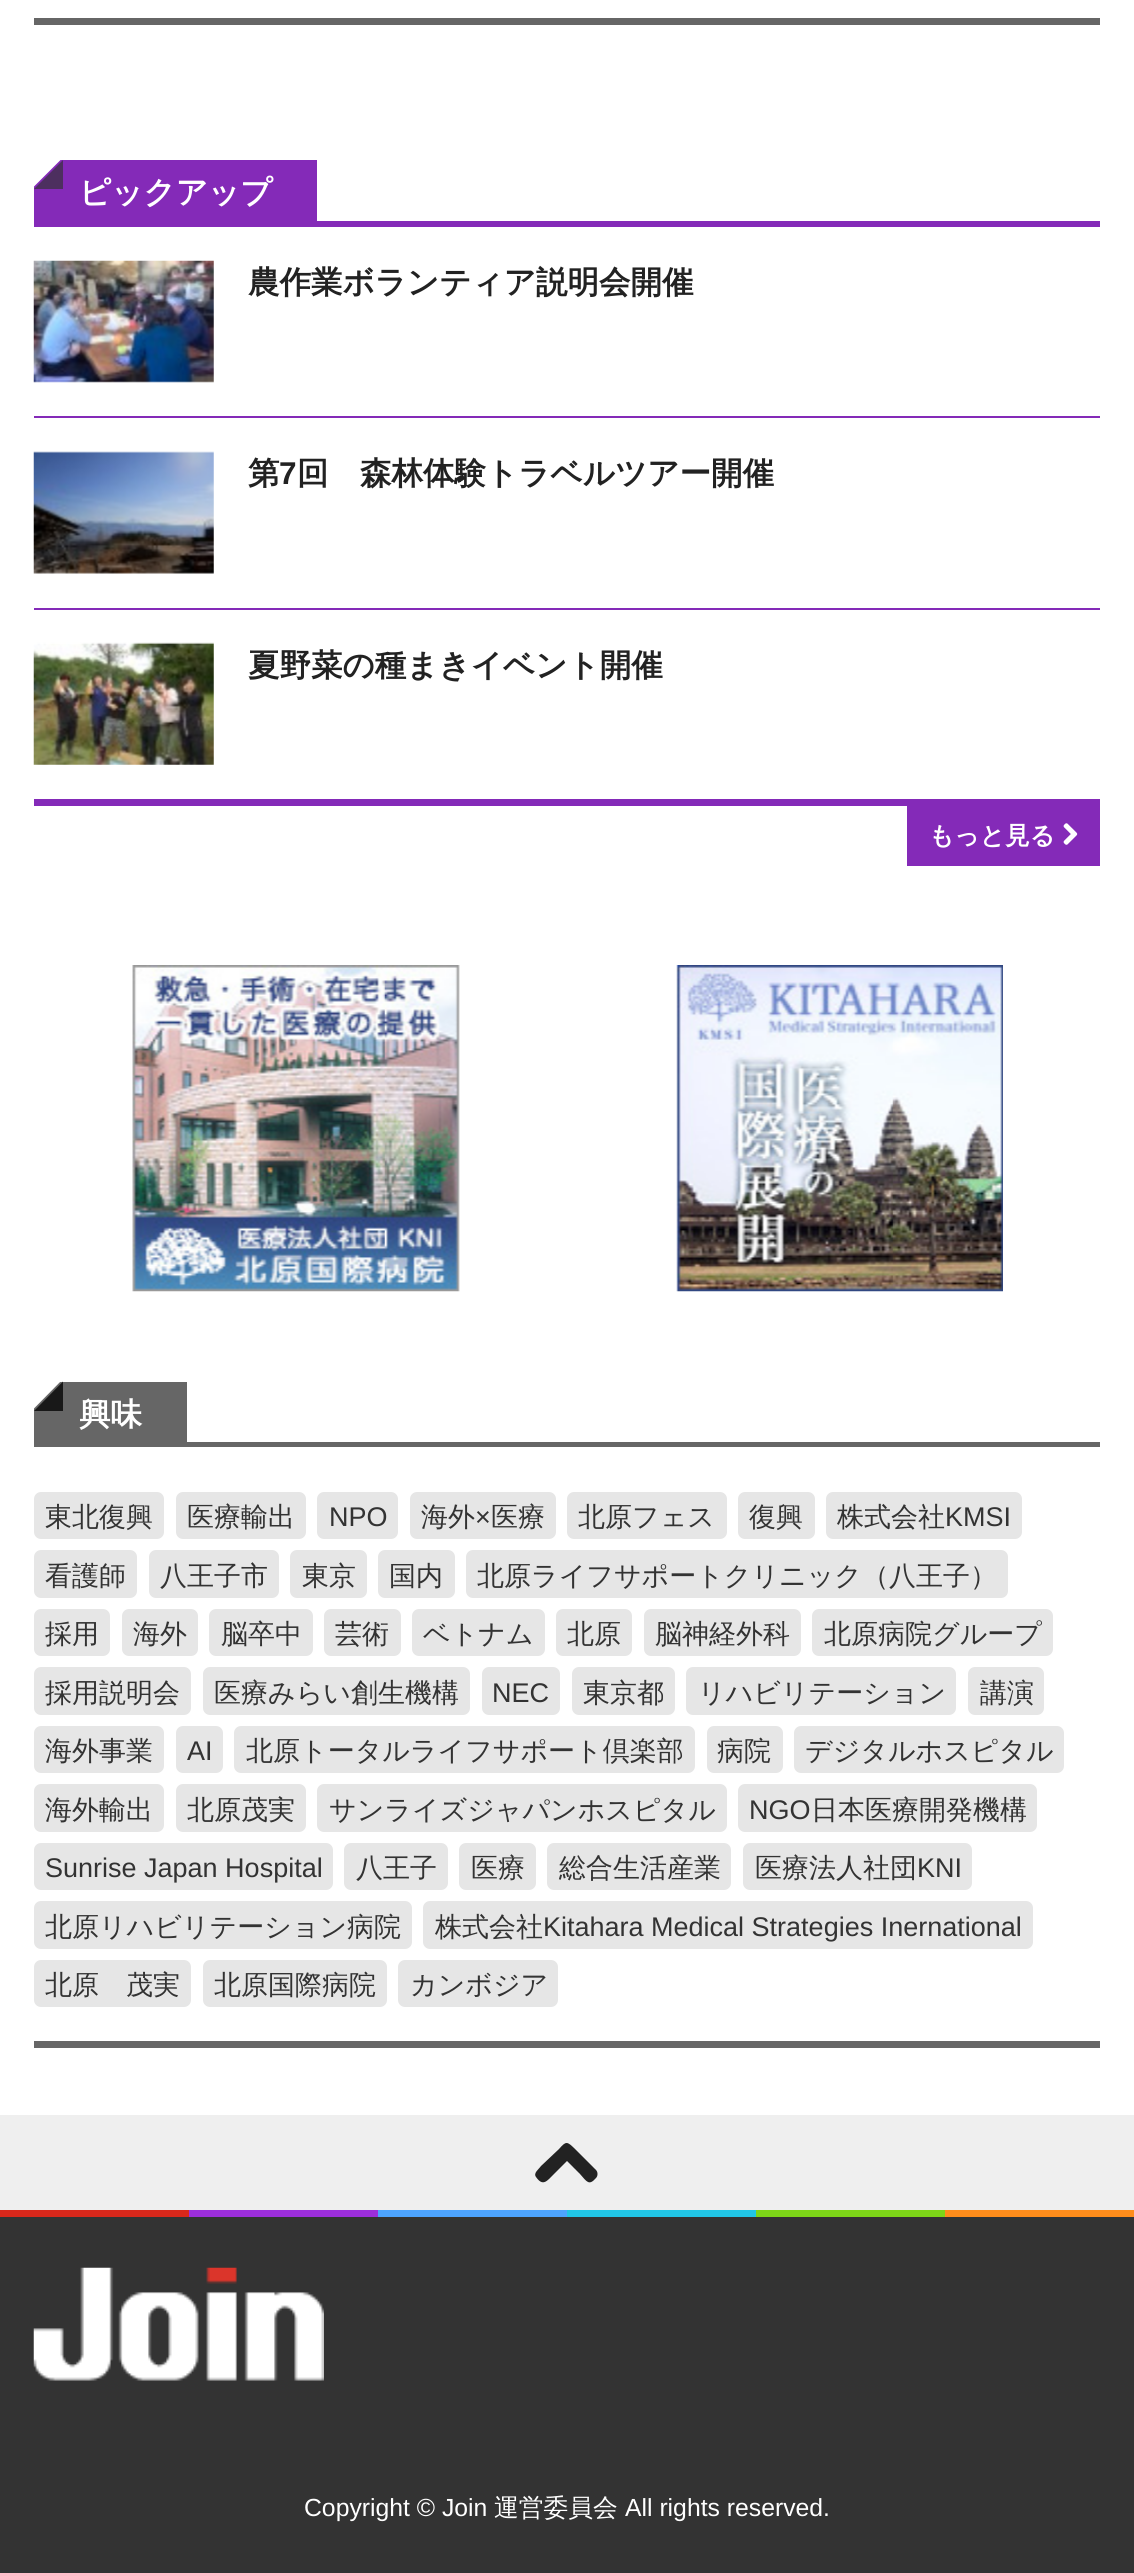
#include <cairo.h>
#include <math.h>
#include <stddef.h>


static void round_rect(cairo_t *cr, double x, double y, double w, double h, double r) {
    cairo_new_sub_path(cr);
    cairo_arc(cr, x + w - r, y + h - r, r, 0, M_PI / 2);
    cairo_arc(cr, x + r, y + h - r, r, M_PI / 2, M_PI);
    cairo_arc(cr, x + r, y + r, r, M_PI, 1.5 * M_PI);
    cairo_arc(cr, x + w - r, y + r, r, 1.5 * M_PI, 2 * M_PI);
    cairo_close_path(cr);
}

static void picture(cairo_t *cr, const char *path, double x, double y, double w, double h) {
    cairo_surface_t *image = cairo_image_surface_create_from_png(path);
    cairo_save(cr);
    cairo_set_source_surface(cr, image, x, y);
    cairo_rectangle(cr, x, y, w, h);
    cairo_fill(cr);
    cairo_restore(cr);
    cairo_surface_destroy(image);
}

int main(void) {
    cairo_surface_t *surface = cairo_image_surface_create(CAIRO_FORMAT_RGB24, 1134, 2573);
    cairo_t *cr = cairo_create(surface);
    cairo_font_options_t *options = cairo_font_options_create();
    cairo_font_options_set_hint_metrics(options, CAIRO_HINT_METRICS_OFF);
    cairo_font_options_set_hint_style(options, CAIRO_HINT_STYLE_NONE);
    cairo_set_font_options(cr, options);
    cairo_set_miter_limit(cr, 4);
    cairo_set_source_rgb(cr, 0.937, 0.937, 0.937);
    cairo_paint(cr);
    cairo_set_source_rgb(cr, 1, 1, 1);
    cairo_rectangle(cr, 0, 0, 1134, 2115);
    cairo_fill(cr);
    cairo_set_source_rgb(cr, 0.4, 0.4, 0.4);
    cairo_rectangle(cr, 34, 18, 1066, 7);
    cairo_fill(cr);
    cairo_set_source_rgb(cr, 0.518, 0.165, 0.722);
    cairo_rectangle(cr, 34, 160, 283, 61);
    cairo_fill(cr);
    cairo_set_source_rgb(cr, 0.302, 0.184, 0.373);
    cairo_new_path(cr);
    cairo_move_to(cr, 63, 189);
    cairo_line_to(cr, 34, 189);
    cairo_line_to(cr, 63, 160);
    cairo_close_path(cr);
    cairo_fill(cr);
    cairo_set_source_rgb(cr, 1, 1, 1);
    cairo_new_path(cr);
    cairo_move_to(cr, 31.5, 157.5);
    cairo_line_to(cr, 63, 157.5);
    cairo_line_to(cr, 31.5, 189);
    cairo_close_path(cr);
    cairo_fill(cr);
    cairo_select_font_face(cr, "WenQuanYi Zen Hei", CAIRO_FONT_SLANT_NORMAL, CAIRO_FONT_WEIGHT_BOLD);
    cairo_set_font_size(cr, 31.5);
    cairo_move_to(cr, 79, 203);
    cairo_show_text(cr, "ピックアップ");
    cairo_set_source_rgb(cr, 0.518, 0.165, 0.722);
    cairo_rectangle(cr, 34, 221, 1066, 6);
    cairo_fill(cr);
    cairo_rectangle(cr, 34, 799, 1066, 7);
    cairo_fill(cr);
    picture(cr, "img1.png", 33, 260, 181, 123);
    cairo_set_source_rgb(cr, 0.133, 0.133, 0.133);
    cairo_move_to(cr, 248, 293);
    cairo_show_text(cr, "農作業ボランティア説明会開催");
    cairo_set_source_rgb(cr, 0.518, 0.165, 0.722);
    cairo_rectangle(cr, 34, 416, 1066, 2);
    cairo_fill(cr);
    picture(cr, "img2.png", 33, 451, 181, 123);
    cairo_set_source_rgb(cr, 0.133, 0.133, 0.133);
    cairo_move_to(cr, 248, 484);
    cairo_show_text(cr, "第");
    cairo_select_font_face(cr, "Liberation Sans", CAIRO_FONT_SLANT_NORMAL, CAIRO_FONT_WEIGHT_BOLD);
    cairo_move_to(cr, 279, 484);
    cairo_show_text(cr, "7");
    cairo_select_font_face(cr, "WenQuanYi Zen Hei", CAIRO_FONT_SLANT_NORMAL, CAIRO_FONT_WEIGHT_BOLD);
    cairo_move_to(cr, 297, 484);
    cairo_show_text(cr, "回　森林体験トラベルツアー開催");
    cairo_set_source_rgb(cr, 0.518, 0.165, 0.722);
    cairo_rectangle(cr, 34, 608, 1066, 2);
    cairo_fill(cr);
    picture(cr, "img3.png", 33, 642, 181, 123);
    cairo_set_source_rgb(cr, 0.133, 0.133, 0.133);
    cairo_move_to(cr, 248, 676);
    cairo_show_text(cr, "夏野菜の種まきイベント開催");
    cairo_set_source_rgb(cr, 0.518, 0.165, 0.722);
    cairo_rectangle(cr, 907, 806, 193, 60);
    cairo_fill(cr);
    cairo_set_font_size(cr, 24.75);
    cairo_set_source_rgb(cr, 1, 1, 1);
    cairo_move_to(cr, 929, 844);
    cairo_show_text(cr, "もっと見る");
    picture(cr, "img4.png", 1063, 823, 15, 22);
    picture(cr, "img5.png", 132, 965, 328, 327);
    picture(cr, "img6.png", 676, 965, 327, 327);
    cairo_set_source_rgb(cr, 0.4, 0.4, 0.4);
    cairo_rectangle(cr, 34, 1382, 153, 60);
    cairo_fill(cr);
    cairo_set_source_rgb(cr, 0.094, 0.094, 0.094);
    cairo_new_path(cr);
    cairo_move_to(cr, 63, 1411);
    cairo_line_to(cr, 34, 1411);
    cairo_line_to(cr, 63, 1381.5);
    cairo_close_path(cr);
    cairo_fill(cr);
    cairo_set_source_rgb(cr, 1, 1, 1);
    cairo_new_path(cr);
    cairo_move_to(cr, 31.5, 1379);
    cairo_line_to(cr, 63, 1379);
    cairo_line_to(cr, 31.5, 1411);
    cairo_close_path(cr);
    cairo_fill(cr);
    cairo_set_font_size(cr, 31.5);
    cairo_move_to(cr, 79, 1425);
    cairo_show_text(cr, "興味");
    cairo_set_source_rgb(cr, 0.4, 0.4, 0.4);
    cairo_rectangle(cr, 34, 1442, 1066, 5);
    cairo_fill(cr);
    cairo_rectangle(cr, 34, 2041, 1066, 7);
    cairo_fill(cr);
    cairo_set_source_rgb(cr, 0.902, 0.902, 0.902);
    round_rect(cr, 34, 1492, 130, 47, 7);
    cairo_fill(cr);
    cairo_select_font_face(cr, "WenQuanYi Zen Hei Medium", CAIRO_FONT_SLANT_NORMAL, CAIRO_FONT_WEIGHT_NORMAL);
    cairo_set_font_size(cr, 27);
    cairo_set_source_rgb(cr, 0.2, 0.2, 0.2);
    cairo_move_to(cr, 45, 1526);
    cairo_show_text(cr, "東北復興");
    cairo_set_source_rgb(cr, 0.902, 0.902, 0.902);
    round_rect(cr, 176, 1492, 130, 47, 7);
    cairo_fill(cr);
    cairo_set_source_rgb(cr, 0.2, 0.2, 0.2);
    cairo_move_to(cr, 187, 1526);
    cairo_show_text(cr, "医療輸出");
    cairo_set_source_rgb(cr, 0.902, 0.902, 0.902);
    round_rect(cr, 317, 1492, 81, 47, 7);
    cairo_fill(cr);
    cairo_select_font_face(cr, "Liberation Sans", CAIRO_FONT_SLANT_NORMAL, CAIRO_FONT_WEIGHT_NORMAL);
    cairo_set_source_rgb(cr, 0.2, 0.2, 0.2);
    cairo_move_to(cr, 329, 1526);
    cairo_show_text(cr, "NPO");
    cairo_set_source_rgb(cr, 0.902, 0.902, 0.902);
    round_rect(cr, 410, 1492, 146, 47, 7);
    cairo_fill(cr);
    cairo_select_font_face(cr, "WenQuanYi Zen Hei Medium", CAIRO_FONT_SLANT_NORMAL, CAIRO_FONT_WEIGHT_NORMAL);
    cairo_set_source_rgb(cr, 0.2, 0.2, 0.2);
    cairo_move_to(cr, 421, 1526);
    cairo_show_text(cr, "海外");
    cairo_select_font_face(cr, "Liberation Sans", CAIRO_FONT_SLANT_NORMAL, CAIRO_FONT_WEIGHT_NORMAL);
    cairo_move_to(cr, 475, 1526);
    cairo_show_text(cr, "×");
    cairo_select_font_face(cr, "WenQuanYi Zen Hei Medium", CAIRO_FONT_SLANT_NORMAL, CAIRO_FONT_WEIGHT_NORMAL);
    cairo_move_to(cr, 491, 1526);
    cairo_show_text(cr, "医療");
    cairo_set_source_rgb(cr, 0.902, 0.902, 0.902);
    round_rect(cr, 567, 1492, 160, 47, 7);
    cairo_fill(cr);
    cairo_set_source_rgb(cr, 0.2, 0.2, 0.2);
    cairo_move_to(cr, 578, 1526);
    cairo_show_text(cr, "北原フェス");
    cairo_set_source_rgb(cr, 0.902, 0.902, 0.902);
    round_rect(cr, 738, 1492, 77, 47, 7);
    cairo_fill(cr);
    cairo_set_source_rgb(cr, 0.2, 0.2, 0.2);
    cairo_move_to(cr, 749, 1526);
    cairo_show_text(cr, "復興");
    cairo_set_source_rgb(cr, 0.902, 0.902, 0.902);
    round_rect(cr, 826, 1492, 196, 47, 7);
    cairo_fill(cr);
    cairo_set_source_rgb(cr, 0.2, 0.2, 0.2);
    cairo_move_to(cr, 837, 1526);
    cairo_show_text(cr, "株式会社");
    cairo_select_font_face(cr, "Liberation Sans", CAIRO_FONT_SLANT_NORMAL, CAIRO_FONT_WEIGHT_NORMAL);
    cairo_move_to(cr, 945, 1526);
    cairo_show_text(cr, "KMSI");
    cairo_set_source_rgb(cr, 0.902, 0.902, 0.902);
    round_rect(cr, 34, 1550, 103, 48, 7);
    cairo_fill(cr);
    cairo_select_font_face(cr, "WenQuanYi Zen Hei Medium", CAIRO_FONT_SLANT_NORMAL, CAIRO_FONT_WEIGHT_NORMAL);
    cairo_set_source_rgb(cr, 0.2, 0.2, 0.2);
    cairo_move_to(cr, 45, 1585);
    cairo_show_text(cr, "看護師");
    cairo_set_source_rgb(cr, 0.902, 0.902, 0.902);
    round_rect(cr, 149, 1550, 130, 48, 7);
    cairo_fill(cr);
    cairo_set_source_rgb(cr, 0.2, 0.2, 0.2);
    cairo_move_to(cr, 160, 1585);
    cairo_show_text(cr, "八王子市");
    cairo_set_source_rgb(cr, 0.902, 0.902, 0.902);
    round_rect(cr, 290, 1550, 77, 48, 7);
    cairo_fill(cr);
    cairo_set_source_rgb(cr, 0.2, 0.2, 0.2);
    cairo_move_to(cr, 302, 1585);
    cairo_show_text(cr, "東京");
    cairo_set_source_rgb(cr, 0.902, 0.902, 0.902);
    round_rect(cr, 378, 1550, 77, 48, 7);
    cairo_fill(cr);
    cairo_set_source_rgb(cr, 0.2, 0.2, 0.2);
    cairo_move_to(cr, 389, 1585);
    cairo_show_text(cr, "国内");
    cairo_set_source_rgb(cr, 0.902, 0.902, 0.902);
    round_rect(cr, 466, 1550, 542, 48, 7);
    cairo_fill(cr);
    cairo_set_source_rgb(cr, 0.2, 0.2, 0.2);
    cairo_move_to(cr, 477, 1585);
    cairo_show_text(cr, "北原ライフサポートクリニック（八王子）");
    cairo_set_source_rgb(cr, 0.902, 0.902, 0.902);
    round_rect(cr, 34, 1609, 76, 47, 7);
    cairo_fill(cr);
    cairo_set_source_rgb(cr, 0.2, 0.2, 0.2);
    cairo_move_to(cr, 45, 1643);
    cairo_show_text(cr, "採用");
    cairo_set_source_rgb(cr, 0.902, 0.902, 0.902);
    round_rect(cr, 122, 1609, 76, 47, 7);
    cairo_fill(cr);
    cairo_set_source_rgb(cr, 0.2, 0.2, 0.2);
    cairo_move_to(cr, 133, 1643);
    cairo_show_text(cr, "海外");
    cairo_set_source_rgb(cr, 0.902, 0.902, 0.902);
    round_rect(cr, 209, 1609, 104, 47, 7);
    cairo_fill(cr);
    cairo_set_source_rgb(cr, 0.2, 0.2, 0.2);
    cairo_move_to(cr, 221, 1643);
    cairo_show_text(cr, "脳卒中");
    cairo_set_source_rgb(cr, 0.902, 0.902, 0.902);
    round_rect(cr, 324, 1609, 77, 47, 7);
    cairo_fill(cr);
    cairo_set_source_rgb(cr, 0.2, 0.2, 0.2);
    cairo_move_to(cr, 335, 1643);
    cairo_show_text(cr, "芸術");
    cairo_set_source_rgb(cr, 0.902, 0.902, 0.902);
    round_rect(cr, 412, 1609, 133, 47, 7);
    cairo_fill(cr);
    cairo_set_source_rgb(cr, 0.2, 0.2, 0.2);
    cairo_move_to(cr, 423, 1643);
    cairo_show_text(cr, "ベトナム");
    cairo_set_source_rgb(cr, 0.902, 0.902, 0.902);
    round_rect(cr, 556, 1609, 76, 47, 7);
    cairo_fill(cr);
    cairo_set_source_rgb(cr, 0.2, 0.2, 0.2);
    cairo_move_to(cr, 567, 1643);
    cairo_show_text(cr, "北原");
    cairo_set_source_rgb(cr, 0.902, 0.902, 0.902);
    round_rect(cr, 644, 1609, 157, 47, 7);
    cairo_fill(cr);
    cairo_set_source_rgb(cr, 0.2, 0.2, 0.2);
    cairo_move_to(cr, 655, 1643);
    cairo_show_text(cr, "脳神経外科");
    cairo_set_source_rgb(cr, 0.902, 0.902, 0.902);
    round_rect(cr, 812, 1609, 241, 47, 7);
    cairo_fill(cr);
    cairo_set_source_rgb(cr, 0.2, 0.2, 0.2);
    cairo_move_to(cr, 824, 1643);
    cairo_show_text(cr, "北原病院グループ");
    cairo_set_source_rgb(cr, 0.902, 0.902, 0.902);
    round_rect(cr, 34, 1667, 157, 48, 7);
    cairo_fill(cr);
    cairo_set_source_rgb(cr, 0.2, 0.2, 0.2);
    cairo_move_to(cr, 45, 1702);
    cairo_show_text(cr, "採用説明会");
    cairo_set_source_rgb(cr, 0.902, 0.902, 0.902);
    round_rect(cr, 203, 1667, 267, 48, 7);
    cairo_fill(cr);
    cairo_set_source_rgb(cr, 0.2, 0.2, 0.2);
    cairo_move_to(cr, 214, 1702);
    cairo_show_text(cr, "医療みらい創生機構");
    cairo_set_source_rgb(cr, 0.902, 0.902, 0.902);
    round_rect(cr, 482, 1667, 78, 48, 7);
    cairo_fill(cr);
    cairo_select_font_face(cr, "Liberation Sans", CAIRO_FONT_SLANT_NORMAL, CAIRO_FONT_WEIGHT_NORMAL);
    cairo_set_source_rgb(cr, 0.2, 0.2, 0.2);
    cairo_move_to(cr, 492, 1702);
    cairo_show_text(cr, "NEC");
    cairo_set_source_rgb(cr, 0.902, 0.902, 0.902);
    round_rect(cr, 572, 1667, 103, 48, 7);
    cairo_fill(cr);
    cairo_select_font_face(cr, "WenQuanYi Zen Hei Medium", CAIRO_FONT_SLANT_NORMAL, CAIRO_FONT_WEIGHT_NORMAL);
    cairo_set_source_rgb(cr, 0.2, 0.2, 0.2);
    cairo_move_to(cr, 583, 1702);
    cairo_show_text(cr, "東京都");
    cairo_set_source_rgb(cr, 0.902, 0.902, 0.902);
    round_rect(cr, 686, 1667, 270, 48, 7);
    cairo_fill(cr);
    cairo_set_source_rgb(cr, 0.2, 0.2, 0.2);
    cairo_move_to(cr, 698, 1702);
    cairo_show_text(cr, "リハビリテーション");
    cairo_set_source_rgb(cr, 0.902, 0.902, 0.902);
    round_rect(cr, 968, 1667, 76, 48, 7);
    cairo_fill(cr);
    cairo_set_source_rgb(cr, 0.2, 0.2, 0.2);
    cairo_move_to(cr, 980, 1702);
    cairo_show_text(cr, "講演");
    cairo_set_source_rgb(cr, 0.902, 0.902, 0.902);
    round_rect(cr, 34, 1726, 130, 47, 7);
    cairo_fill(cr);
    cairo_set_source_rgb(cr, 0.2, 0.2, 0.2);
    cairo_move_to(cr, 45, 1760);
    cairo_show_text(cr, "海外事業");
    cairo_set_source_rgb(cr, 0.902, 0.902, 0.902);
    round_rect(cr, 176, 1726, 47, 47, 7);
    cairo_fill(cr);
    cairo_select_font_face(cr, "Liberation Sans", CAIRO_FONT_SLANT_NORMAL, CAIRO_FONT_WEIGHT_NORMAL);
    cairo_set_source_rgb(cr, 0.2, 0.2, 0.2);
    cairo_move_to(cr, 187, 1760);
    cairo_show_text(cr, "AI");
    cairo_set_source_rgb(cr, 0.902, 0.902, 0.902);
    round_rect(cr, 234, 1726, 461, 47, 7);
    cairo_fill(cr);
    cairo_select_font_face(cr, "WenQuanYi Zen Hei Medium", CAIRO_FONT_SLANT_NORMAL, CAIRO_FONT_WEIGHT_NORMAL);
    cairo_set_source_rgb(cr, 0.2, 0.2, 0.2);
    cairo_move_to(cr, 246, 1760);
    cairo_show_text(cr, "北原トータルライフサポート倶楽部");
    cairo_set_source_rgb(cr, 0.902, 0.902, 0.902);
    round_rect(cr, 707, 1726, 76, 47, 7);
    cairo_fill(cr);
    cairo_set_source_rgb(cr, 0.2, 0.2, 0.2);
    cairo_move_to(cr, 717, 1760);
    cairo_show_text(cr, "病院");
    cairo_set_source_rgb(cr, 0.902, 0.902, 0.902);
    round_rect(cr, 794, 1726, 270, 47, 7);
    cairo_fill(cr);
    cairo_set_source_rgb(cr, 0.2, 0.2, 0.2);
    cairo_move_to(cr, 805, 1760);
    cairo_show_text(cr, "デジタルホスピタル");
    cairo_set_source_rgb(cr, 0.902, 0.902, 0.902);
    round_rect(cr, 34, 1784, 130, 48, 7);
    cairo_fill(cr);
    cairo_set_source_rgb(cr, 0.2, 0.2, 0.2);
    cairo_move_to(cr, 45, 1819);
    cairo_show_text(cr, "海外輸出");
    cairo_set_source_rgb(cr, 0.902, 0.902, 0.902);
    round_rect(cr, 176, 1784, 130, 48, 7);
    cairo_fill(cr);
    cairo_set_source_rgb(cr, 0.2, 0.2, 0.2);
    cairo_move_to(cr, 187, 1819);
    cairo_show_text(cr, "北原茂実");
    cairo_set_source_rgb(cr, 0.902, 0.902, 0.902);
    round_rect(cr, 317, 1784, 410, 48, 7);
    cairo_fill(cr);
    cairo_set_source_rgb(cr, 0.2, 0.2, 0.2);
    cairo_move_to(cr, 329, 1819);
    cairo_show_text(cr, "サンライズジャパンホスピタル");
    cairo_set_source_rgb(cr, 0.902, 0.902, 0.902);
    round_rect(cr, 738, 1784, 299, 48, 7);
    cairo_fill(cr);
    cairo_select_font_face(cr, "Liberation Sans", CAIRO_FONT_SLANT_NORMAL, CAIRO_FONT_WEIGHT_NORMAL);
    cairo_set_source_rgb(cr, 0.2, 0.2, 0.2);
    cairo_move_to(cr, 749, 1819);
    cairo_show_text(cr, "NGO");
    cairo_select_font_face(cr, "WenQuanYi Zen Hei Medium", CAIRO_FONT_SLANT_NORMAL, CAIRO_FONT_WEIGHT_NORMAL);
    cairo_move_to(cr, 811, 1819);
    cairo_show_text(cr, "日本医療開発機構");
    cairo_set_source_rgb(cr, 0.902, 0.902, 0.902);
    round_rect(cr, 34, 1843, 299, 47, 7);
    cairo_fill(cr);
    cairo_select_font_face(cr, "Liberation Sans", CAIRO_FONT_SLANT_NORMAL, CAIRO_FONT_WEIGHT_NORMAL);
    cairo_set_source_rgb(cr, 0.2, 0.2, 0.2);
    cairo_move_to(cr, 45, 1877);
    cairo_show_text(cr, "Sunrise Japan Hospital");
    cairo_set_source_rgb(cr, 0.902, 0.902, 0.902);
    round_rect(cr, 344, 1843, 104, 47, 7);
    cairo_fill(cr);
    cairo_select_font_face(cr, "WenQuanYi Zen Hei Medium", CAIRO_FONT_SLANT_NORMAL, CAIRO_FONT_WEIGHT_NORMAL);
    cairo_set_source_rgb(cr, 0.2, 0.2, 0.2);
    cairo_move_to(cr, 356, 1877);
    cairo_show_text(cr, "八王子");
    cairo_set_source_rgb(cr, 0.902, 0.902, 0.902);
    round_rect(cr, 459, 1843, 77, 47, 7);
    cairo_fill(cr);
    cairo_set_source_rgb(cr, 0.2, 0.2, 0.2);
    cairo_move_to(cr, 471, 1877);
    cairo_show_text(cr, "医療");
    cairo_set_source_rgb(cr, 0.902, 0.902, 0.902);
    round_rect(cr, 547, 1843, 184, 47, 7);
    cairo_fill(cr);
    cairo_set_source_rgb(cr, 0.2, 0.2, 0.2);
    cairo_move_to(cr, 559, 1877);
    cairo_show_text(cr, "総合生活産業");
    cairo_set_source_rgb(cr, 0.902, 0.902, 0.902);
    round_rect(cr, 743, 1843, 229, 47, 7);
    cairo_fill(cr);
    cairo_set_source_rgb(cr, 0.2, 0.2, 0.2);
    cairo_move_to(cr, 755, 1877);
    cairo_show_text(cr, "医療法人社団");
    cairo_select_font_face(cr, "Liberation Sans", CAIRO_FONT_SLANT_NORMAL, CAIRO_FONT_WEIGHT_NORMAL);
    cairo_move_to(cr, 917, 1877);
    cairo_show_text(cr, "KNI");
    cairo_set_source_rgb(cr, 0.902, 0.902, 0.902);
    round_rect(cr, 34, 1901, 378, 48, 7);
    cairo_fill(cr);
    cairo_select_font_face(cr, "WenQuanYi Zen Hei Medium", CAIRO_FONT_SLANT_NORMAL, CAIRO_FONT_WEIGHT_NORMAL);
    cairo_set_source_rgb(cr, 0.2, 0.2, 0.2);
    cairo_move_to(cr, 45, 1936);
    cairo_show_text(cr, "北原リハビリテーション病院");
    cairo_set_source_rgb(cr, 0.902, 0.902, 0.902);
    round_rect(cr, 423, 1901, 610, 48, 7);
    cairo_fill(cr);
    cairo_set_source_rgb(cr, 0.2, 0.2, 0.2);
    cairo_move_to(cr, 435, 1936);
    cairo_show_text(cr, "株式会社");
    cairo_select_font_face(cr, "Liberation Sans", CAIRO_FONT_SLANT_NORMAL, CAIRO_FONT_WEIGHT_NORMAL);
    cairo_move_to(cr, 543, 1936);
    cairo_show_text(cr, "Kitahara Medical Strategies Inernational");
    cairo_set_source_rgb(cr, 0.902, 0.902, 0.902);
    round_rect(cr, 34, 1960, 157, 47, 7);
    cairo_fill(cr);
    cairo_select_font_face(cr, "WenQuanYi Zen Hei Medium", CAIRO_FONT_SLANT_NORMAL, CAIRO_FONT_WEIGHT_NORMAL);
    cairo_set_source_rgb(cr, 0.2, 0.2, 0.2);
    cairo_move_to(cr, 45, 1994);
    cairo_show_text(cr, "北原　茂実");
    cairo_set_source_rgb(cr, 0.902, 0.902, 0.902);
    round_rect(cr, 203, 1960, 184, 47, 7);
    cairo_fill(cr);
    cairo_set_source_rgb(cr, 0.2, 0.2, 0.2);
    cairo_move_to(cr, 214, 1994);
    cairo_show_text(cr, "北原国際病院");
    cairo_set_source_rgb(cr, 0.902, 0.902, 0.902);
    round_rect(cr, 398, 1960, 160, 47, 7);
    cairo_fill(cr);
    cairo_set_source_rgb(cr, 0.2, 0.2, 0.2);
    cairo_move_to(cr, 410, 1994);
    cairo_show_text(cr, "カンボジア");
    cairo_set_source_rgb(cr, 0.133, 0.133, 0.133);
    cairo_new_path(cr);
    cairo_move_to(cr, 596, 2170);
    cairo_curve_to(cr, 598, 2172, 598, 2176, 596, 2178);
    cairo_curve_to(cr, 589, 2186, 587, 2182, 580, 2174);
    cairo_line_to(cr, 567, 2161);
    cairo_line_to(cr, 554, 2174);
    cairo_curve_to(cr, 547, 2181, 543, 2187, 536, 2177);
    cairo_curve_to(cr, 533, 2173, 539, 2169, 541, 2166);
    cairo_line_to(cr, 559, 2149);
    cairo_curve_to(cr, 566, 2141, 567, 2141, 575, 2149);
    cairo_close_path(cr);
    cairo_fill(cr);
    cairo_set_source_rgb(cr, 0.847, 0.157, 0.106);
    cairo_rectangle(cr, 0, 2210, 189, 7);
    cairo_fill(cr);
    cairo_set_source_rgb(cr, 0.612, 0.18, 0.859);
    cairo_rectangle(cr, 189, 2210, 189, 7);
    cairo_fill(cr);
    cairo_set_source_rgb(cr, 0.302, 0.643, 1);
    cairo_rectangle(cr, 378, 2210, 189, 7);
    cairo_fill(cr);
    cairo_set_source_rgb(cr, 0.129, 0.776, 0.902);
    cairo_rectangle(cr, 567, 2210, 189, 7);
    cairo_fill(cr);
    cairo_set_source_rgb(cr, 0.49, 0.839, 0.094);
    cairo_rectangle(cr, 756, 2210, 189, 7);
    cairo_fill(cr);
    cairo_set_source_rgb(cr, 1, 0.553, 0.106);
    cairo_rectangle(cr, 945, 2210, 189, 7);
    cairo_fill(cr);
    cairo_set_source_rgb(cr, 0.2, 0.2, 0.2);
    cairo_rectangle(cr, 0, 2217, 1134, 356);
    cairo_fill(cr);
    picture(cr, "img7.png", 33, 2267, 291, 114);
    cairo_select_font_face(cr, "Liberation Sans", CAIRO_FONT_SLANT_NORMAL, CAIRO_FONT_WEIGHT_NORMAL);
    cairo_set_font_size(cr, 24.75);
    cairo_set_source_rgb(cr, 1, 1, 1);
    cairo_move_to(cr, 304, 2516);
    cairo_show_text(cr, "Copyright © Join");
    cairo_select_font_face(cr, "WenQuanYi Zen Hei Medium", CAIRO_FONT_SLANT_NORMAL, CAIRO_FONT_WEIGHT_NORMAL);
    cairo_move_to(cr, 494, 2516);
    cairo_show_text(cr, "運営委員会");
    cairo_select_font_face(cr, "Liberation Sans", CAIRO_FONT_SLANT_NORMAL, CAIRO_FONT_WEIGHT_NORMAL);
    cairo_move_to(cr, 625, 2516);
    cairo_show_text(cr, "All rights reserved.");
    cairo_surface_write_to_png(surface, "page.png");
    cairo_font_options_destroy(options);
    cairo_destroy(cr);
    cairo_surface_destroy(surface);
    return 0;
}
